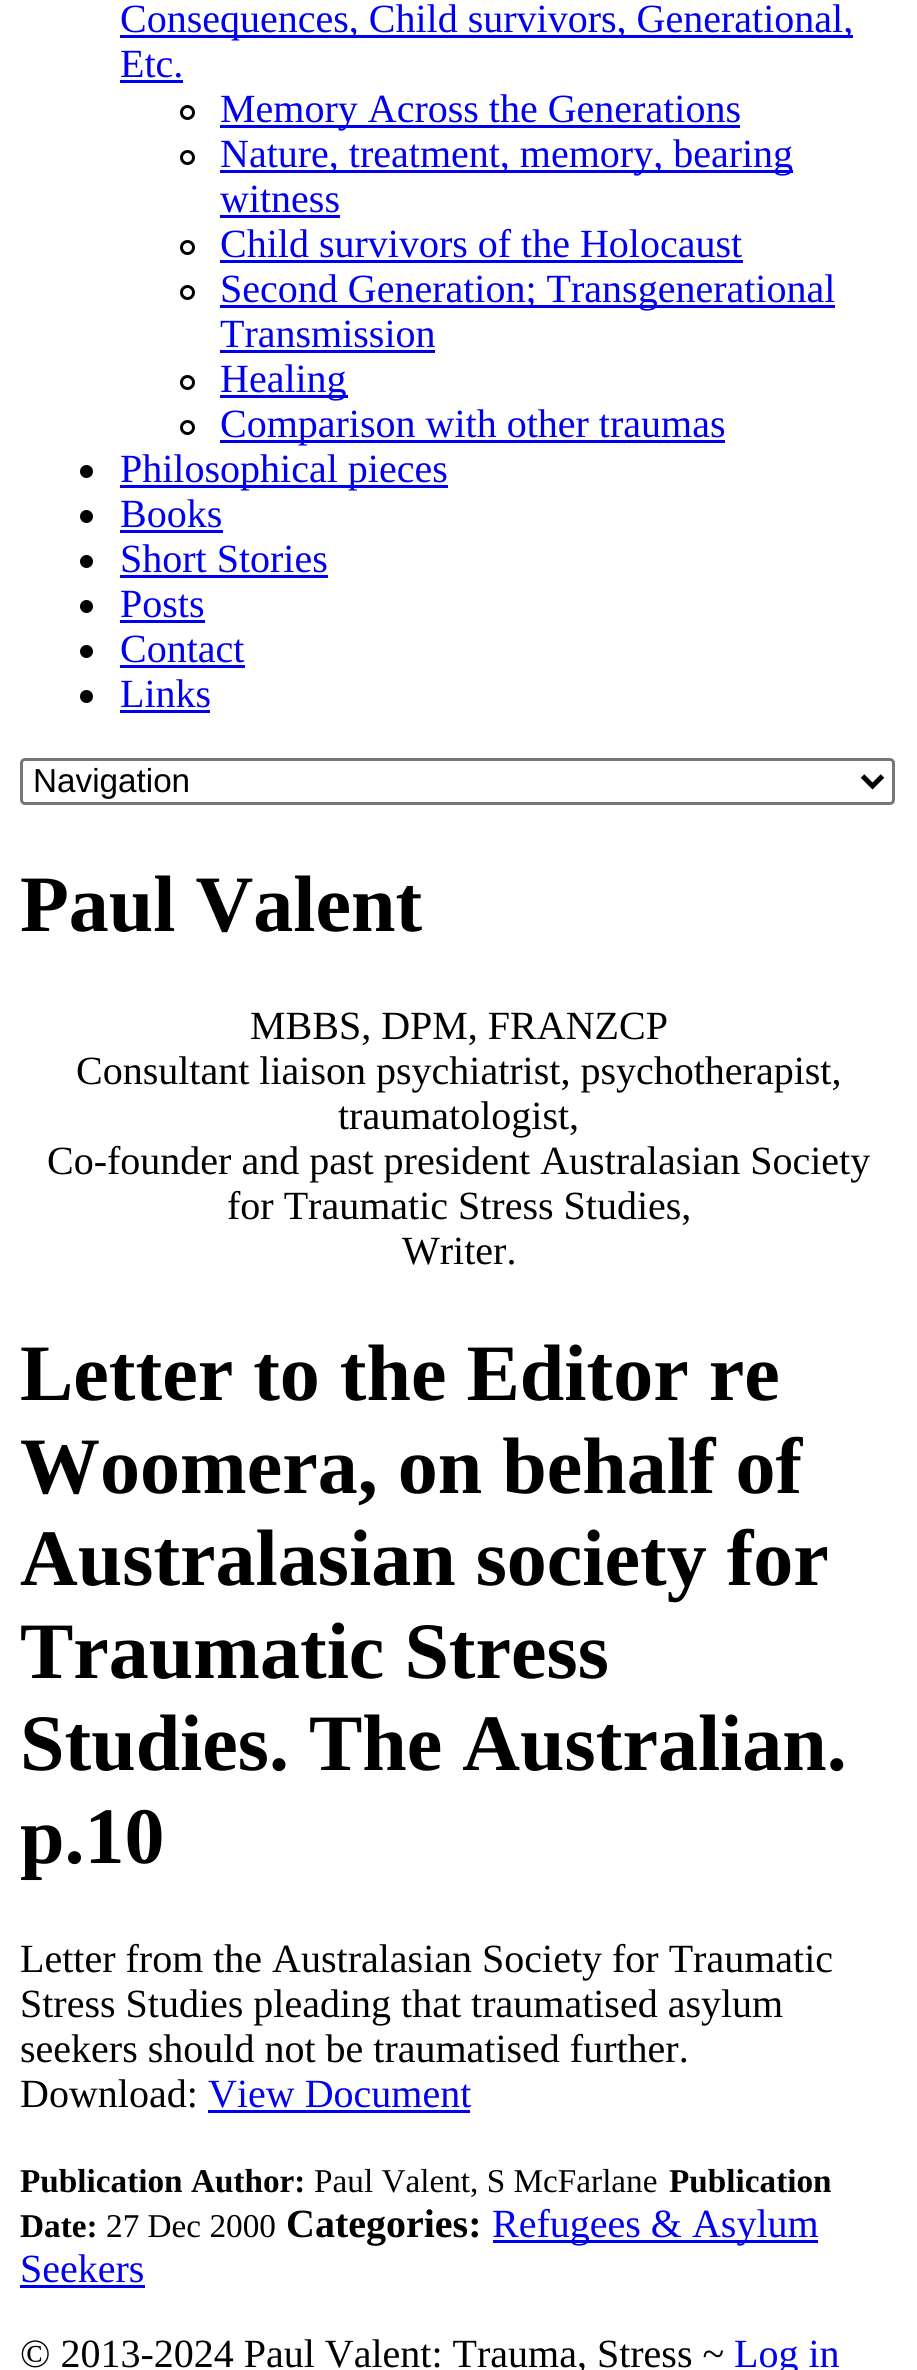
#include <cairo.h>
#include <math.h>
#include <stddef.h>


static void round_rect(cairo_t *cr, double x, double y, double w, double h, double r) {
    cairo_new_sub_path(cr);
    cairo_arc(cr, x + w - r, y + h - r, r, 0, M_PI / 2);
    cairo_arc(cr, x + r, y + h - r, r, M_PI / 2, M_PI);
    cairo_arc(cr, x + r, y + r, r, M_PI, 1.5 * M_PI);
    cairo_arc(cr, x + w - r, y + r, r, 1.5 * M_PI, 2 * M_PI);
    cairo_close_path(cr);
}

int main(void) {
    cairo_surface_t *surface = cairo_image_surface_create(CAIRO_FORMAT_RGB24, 917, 2370);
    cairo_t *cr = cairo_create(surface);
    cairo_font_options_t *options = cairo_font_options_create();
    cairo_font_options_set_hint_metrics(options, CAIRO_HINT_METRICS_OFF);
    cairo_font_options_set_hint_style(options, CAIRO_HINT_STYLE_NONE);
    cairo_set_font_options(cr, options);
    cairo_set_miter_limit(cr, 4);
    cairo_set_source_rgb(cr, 1, 1, 1);
    cairo_paint(cr);
    cairo_set_source_rgb(cr, 0, 0, 0.933);
    cairo_rectangle(cr, 120, 35, 733, 3);
    cairo_fill(cr);
    cairo_select_font_face(cr, "Liberation Serif", CAIRO_FONT_SLANT_NORMAL, CAIRO_FONT_WEIGHT_NORMAL);
    cairo_set_font_size(cr, 40);
    cairo_move_to(cr, 120, 32);
    cairo_show_text(cr, "Consequences, Child survivors, Generational,");
    cairo_move_to(cr, 120, 77);
    cairo_show_text(cr, "Etc.");
    cairo_rectangle(cr, 120, 80, 63, 3);
    cairo_fill(cr);
    cairo_arc(cr, 187.5, 112.5, 6, 0, 2 * M_PI);
    cairo_set_source_rgb(cr, 0, 0, 0);
    cairo_set_line_width(cr, 3);
    cairo_stroke(cr);
    cairo_set_source_rgb(cr, 0, 0, 0.933);
    cairo_rectangle(cr, 220, 125, 520, 3);
    cairo_fill(cr);
    cairo_move_to(cr, 220, 122);
    cairo_show_text(cr, "Memory Across the Generations");
    cairo_new_path(cr);
    cairo_arc(cr, 187.5, 157.5, 6, 0, 2 * M_PI);
    cairo_set_source_rgb(cr, 0, 0, 0);
    cairo_stroke(cr);
    cairo_set_source_rgb(cr, 0, 0, 0.933);
    cairo_rectangle(cr, 220, 170, 573, 3);
    cairo_fill(cr);
    cairo_move_to(cr, 220, 167);
    cairo_show_text(cr, "Nature, treatment, memory, bearing");
    cairo_move_to(cr, 220, 212);
    cairo_show_text(cr, "witness");
    cairo_rectangle(cr, 220, 215, 120, 3);
    cairo_fill(cr);
    cairo_arc(cr, 187.5, 247.5, 6, 0, 2 * M_PI);
    cairo_set_source_rgb(cr, 0, 0, 0);
    cairo_stroke(cr);
    cairo_set_source_rgb(cr, 0, 0, 0.933);
    cairo_move_to(cr, 220, 257);
    cairo_show_text(cr, "Child survivors of the Holocaust");
    cairo_rectangle(cr, 220, 260, 523, 3);
    cairo_fill(cr);
    cairo_arc(cr, 187.5, 292.5, 6, 0, 2 * M_PI);
    cairo_set_source_rgb(cr, 0, 0, 0);
    cairo_stroke(cr);
    cairo_set_source_rgb(cr, 0, 0, 0.933);
    cairo_rectangle(cr, 220, 305, 615, 3);
    cairo_fill(cr);
    cairo_move_to(cr, 220, 302);
    cairo_show_text(cr, "Second Generation; Transgenerational");
    cairo_move_to(cr, 220, 347);
    cairo_show_text(cr, "Transmission");
    cairo_rectangle(cr, 220, 350, 215, 3);
    cairo_fill(cr);
    cairo_arc(cr, 187.5, 382.5, 6, 0, 2 * M_PI);
    cairo_set_source_rgb(cr, 0, 0, 0);
    cairo_stroke(cr);
    cairo_set_source_rgb(cr, 0, 0, 0.933);
    cairo_rectangle(cr, 220, 395, 128, 3);
    cairo_fill(cr);
    cairo_move_to(cr, 220, 392);
    cairo_show_text(cr, "Healing");
    cairo_new_path(cr);
    cairo_arc(cr, 187.5, 427.5, 6, 0, 2 * M_PI);
    cairo_set_source_rgb(cr, 0, 0, 0);
    cairo_stroke(cr);
    cairo_set_source_rgb(cr, 0, 0, 0.933);
    cairo_rectangle(cr, 220, 440, 505, 3);
    cairo_fill(cr);
    cairo_move_to(cr, 220, 437);
    cairo_show_text(cr, "Comparison with other traumas");
    cairo_set_source_rgb(cr, 0, 0, 0);
    cairo_new_path(cr);
    cairo_arc(cr, 86.5, 471.5, 6.5, 0, 2 * M_PI);
    cairo_fill(cr);
    cairo_set_source_rgb(cr, 0, 0, 0.933);
    cairo_rectangle(cr, 120, 485, 328, 3);
    cairo_fill(cr);
    cairo_move_to(cr, 120, 482);
    cairo_show_text(cr, "Philosophical pieces");
    cairo_set_source_rgb(cr, 0, 0, 0);
    cairo_new_path(cr);
    cairo_arc(cr, 86.5, 516.5, 6.5, 0, 2 * M_PI);
    cairo_fill(cr);
    cairo_set_source_rgb(cr, 0, 0, 0.933);
    cairo_move_to(cr, 120, 527);
    cairo_show_text(cr, "Books");
    cairo_rectangle(cr, 120, 530, 103, 3);
    cairo_fill(cr);
    cairo_set_source_rgb(cr, 0, 0, 0);
    cairo_arc(cr, 86.5, 561.5, 6.5, 0, 2 * M_PI);
    cairo_fill(cr);
    cairo_set_source_rgb(cr, 0, 0, 0.933);
    cairo_move_to(cr, 120, 572);
    cairo_show_text(cr, "Short Stories");
    cairo_rectangle(cr, 120, 575, 208, 3);
    cairo_fill(cr);
    cairo_set_source_rgb(cr, 0, 0, 0);
    cairo_arc(cr, 86.5, 606.5, 6.5, 0, 2 * M_PI);
    cairo_fill(cr);
    cairo_set_source_rgb(cr, 0, 0, 0.933);
    cairo_move_to(cr, 120, 617);
    cairo_show_text(cr, "Posts");
    cairo_rectangle(cr, 120, 620, 85, 3);
    cairo_fill(cr);
    cairo_set_source_rgb(cr, 0, 0, 0);
    cairo_arc(cr, 86.5, 651.5, 6.5, 0, 2 * M_PI);
    cairo_fill(cr);
    cairo_set_source_rgb(cr, 0, 0, 0.933);
    cairo_move_to(cr, 120, 662);
    cairo_show_text(cr, "Contact");
    cairo_rectangle(cr, 120, 665, 125, 3);
    cairo_fill(cr);
    cairo_set_source_rgb(cr, 0, 0, 0);
    cairo_arc(cr, 86.5, 696.5, 6.5, 0, 2 * M_PI);
    cairo_fill(cr);
    cairo_set_source_rgb(cr, 0, 0, 0.933);
    cairo_move_to(cr, 120, 707);
    cairo_show_text(cr, "Links");
    cairo_rectangle(cr, 120, 710, 90, 3);
    cairo_fill(cr);
    round_rect(cr, 21.5, 759.5, 872, 44, 3.5);
    cairo_set_source_rgb(cr, 0.463, 0.463, 0.463);
    cairo_stroke(cr);
    cairo_new_path(cr);
    cairo_move_to(cr, 862.5, 776);
    cairo_line_to(cr, 872.5, 786);
    cairo_line_to(cr, 882.5, 776);
    cairo_set_source_rgb(cr, 0, 0, 0);
    cairo_set_line_width(cr, 5);
    cairo_stroke(cr);
    cairo_select_font_face(cr, "Liberation Sans", CAIRO_FONT_SLANT_NORMAL, CAIRO_FONT_WEIGHT_NORMAL);
    cairo_set_font_size(cr, 33.25);
    cairo_move_to(cr, 33, 792);
    cairo_show_text(cr, "Navigation");
    cairo_select_font_face(cr, "Liberation Serif", CAIRO_FONT_SLANT_NORMAL, CAIRO_FONT_WEIGHT_BOLD);
    cairo_set_font_size(cr, 80);
    cairo_move_to(cr, 20, 931);
    cairo_show_text(cr, "Paul Valent");
    cairo_select_font_face(cr, "Liberation Serif", CAIRO_FONT_SLANT_NORMAL, CAIRO_FONT_WEIGHT_NORMAL);
    cairo_set_font_size(cr, 40);
    cairo_move_to(cr, 250, 1039);
    cairo_show_text(cr, "MBBS, DPM, FRANZCP");
    cairo_move_to(cr, 76, 1084);
    cairo_show_text(cr, "Consultant liaison psychiatrist, psychotherapist,");
    cairo_move_to(cr, 338, 1129);
    cairo_show_text(cr, "traumatologist,");
    cairo_move_to(cr, 47, 1174);
    cairo_show_text(cr, "Co-founder and past president Australasian Society");
    cairo_move_to(cr, 227, 1219);
    cairo_show_text(cr, "for Traumatic Stress Studies,");
    cairo_move_to(cr, 402, 1264);
    cairo_show_text(cr, "Writer.");
    cairo_select_font_face(cr, "Liberation Serif", CAIRO_FONT_SLANT_NORMAL, CAIRO_FONT_WEIGHT_BOLD);
    cairo_set_font_size(cr, 80);
    cairo_move_to(cr, 20, 1400);
    cairo_show_text(cr, "Letter to the Editor re");
    cairo_move_to(cr, 20, 1493);
    cairo_show_text(cr, "Woomera, on behalf of");
    cairo_move_to(cr, 20, 1585);
    cairo_show_text(cr, "Australasian society for");
    cairo_move_to(cr, 20, 1678);
    cairo_show_text(cr, "Traumatic Stress");
    cairo_move_to(cr, 20, 1770);
    cairo_show_text(cr, "Studies. The Australian.");
    cairo_move_to(cr, 20, 1863);
    cairo_show_text(cr, "p.10");
    cairo_select_font_face(cr, "Liberation Serif", CAIRO_FONT_SLANT_NORMAL, CAIRO_FONT_WEIGHT_NORMAL);
    cairo_set_font_size(cr, 40);
    cairo_move_to(cr, 20, 1972);
    cairo_show_text(cr, "Letter from the Australasian Society for Traumatic");
    cairo_move_to(cr, 20, 2017);
    cairo_show_text(cr, "Stress Studies pleading that traumatised asylum");
    cairo_move_to(cr, 20, 2062);
    cairo_show_text(cr, "seekers should not be traumatised further.");
    cairo_move_to(cr, 20, 2107);
    cairo_show_text(cr, "Download:");
    cairo_set_source_rgb(cr, 0, 0, 0.933);
    cairo_move_to(cr, 208, 2107);
    cairo_show_text(cr, "View Document");
    cairo_rectangle(cr, 208, 2110, 262, 3);
    cairo_fill(cr);
    cairo_select_font_face(cr, "Liberation Serif", CAIRO_FONT_SLANT_NORMAL, CAIRO_FONT_WEIGHT_BOLD);
    cairo_set_font_size(cr, 33.25);
    cairo_set_source_rgb(cr, 0, 0, 0);
    cairo_move_to(cr, 20, 2192);
    cairo_show_text(cr, "Publication Author:");
    cairo_select_font_face(cr, "Liberation Serif", CAIRO_FONT_SLANT_NORMAL, CAIRO_FONT_WEIGHT_NORMAL);
    cairo_move_to(cr, 314, 2192);
    cairo_show_text(cr, "Paul Valent, S McFarlane");
    cairo_select_font_face(cr, "Liberation Serif", CAIRO_FONT_SLANT_NORMAL, CAIRO_FONT_WEIGHT_BOLD);
    cairo_move_to(cr, 669, 2192);
    cairo_show_text(cr, "Publication");
    cairo_move_to(cr, 20, 2237);
    cairo_show_text(cr, "Date:");
    cairo_select_font_face(cr, "Liberation Serif", CAIRO_FONT_SLANT_NORMAL, CAIRO_FONT_WEIGHT_NORMAL);
    cairo_move_to(cr, 106, 2237);
    cairo_show_text(cr, "27 Dec 2000");
    cairo_select_font_face(cr, "Liberation Serif", CAIRO_FONT_SLANT_NORMAL, CAIRO_FONT_WEIGHT_BOLD);
    cairo_set_font_size(cr, 40);
    cairo_move_to(cr, 286, 2237);
    cairo_show_text(cr, "Categories:");
    cairo_set_source_rgb(cr, 0, 0, 0.933);
    cairo_rectangle(cr, 493, 2240, 325, 3);
    cairo_fill(cr);
    cairo_select_font_face(cr, "Liberation Serif", CAIRO_FONT_SLANT_NORMAL, CAIRO_FONT_WEIGHT_NORMAL);
    cairo_move_to(cr, 492, 2237);
    cairo_show_text(cr, "Refugees & Asylum");
    cairo_move_to(cr, 20, 2282);
    cairo_show_text(cr, "Seekers");
    cairo_rectangle(cr, 20, 2285, 125, 3);
    cairo_fill(cr);
    cairo_set_source_rgb(cr, 0, 0, 0);
    cairo_move_to(cr, 20, 2367);
    cairo_show_text(cr, "© 2013-2024 Paul Valent: Trauma, Stress ~");
    cairo_set_source_rgb(cr, 0, 0, 0.933);
    cairo_move_to(cr, 734, 2367);
    cairo_show_text(cr, "Log in");
    cairo_surface_write_to_png(surface, "page.png");
    cairo_font_options_destroy(options);
    cairo_destroy(cr);
    cairo_surface_destroy(surface);
    return 0;
}
